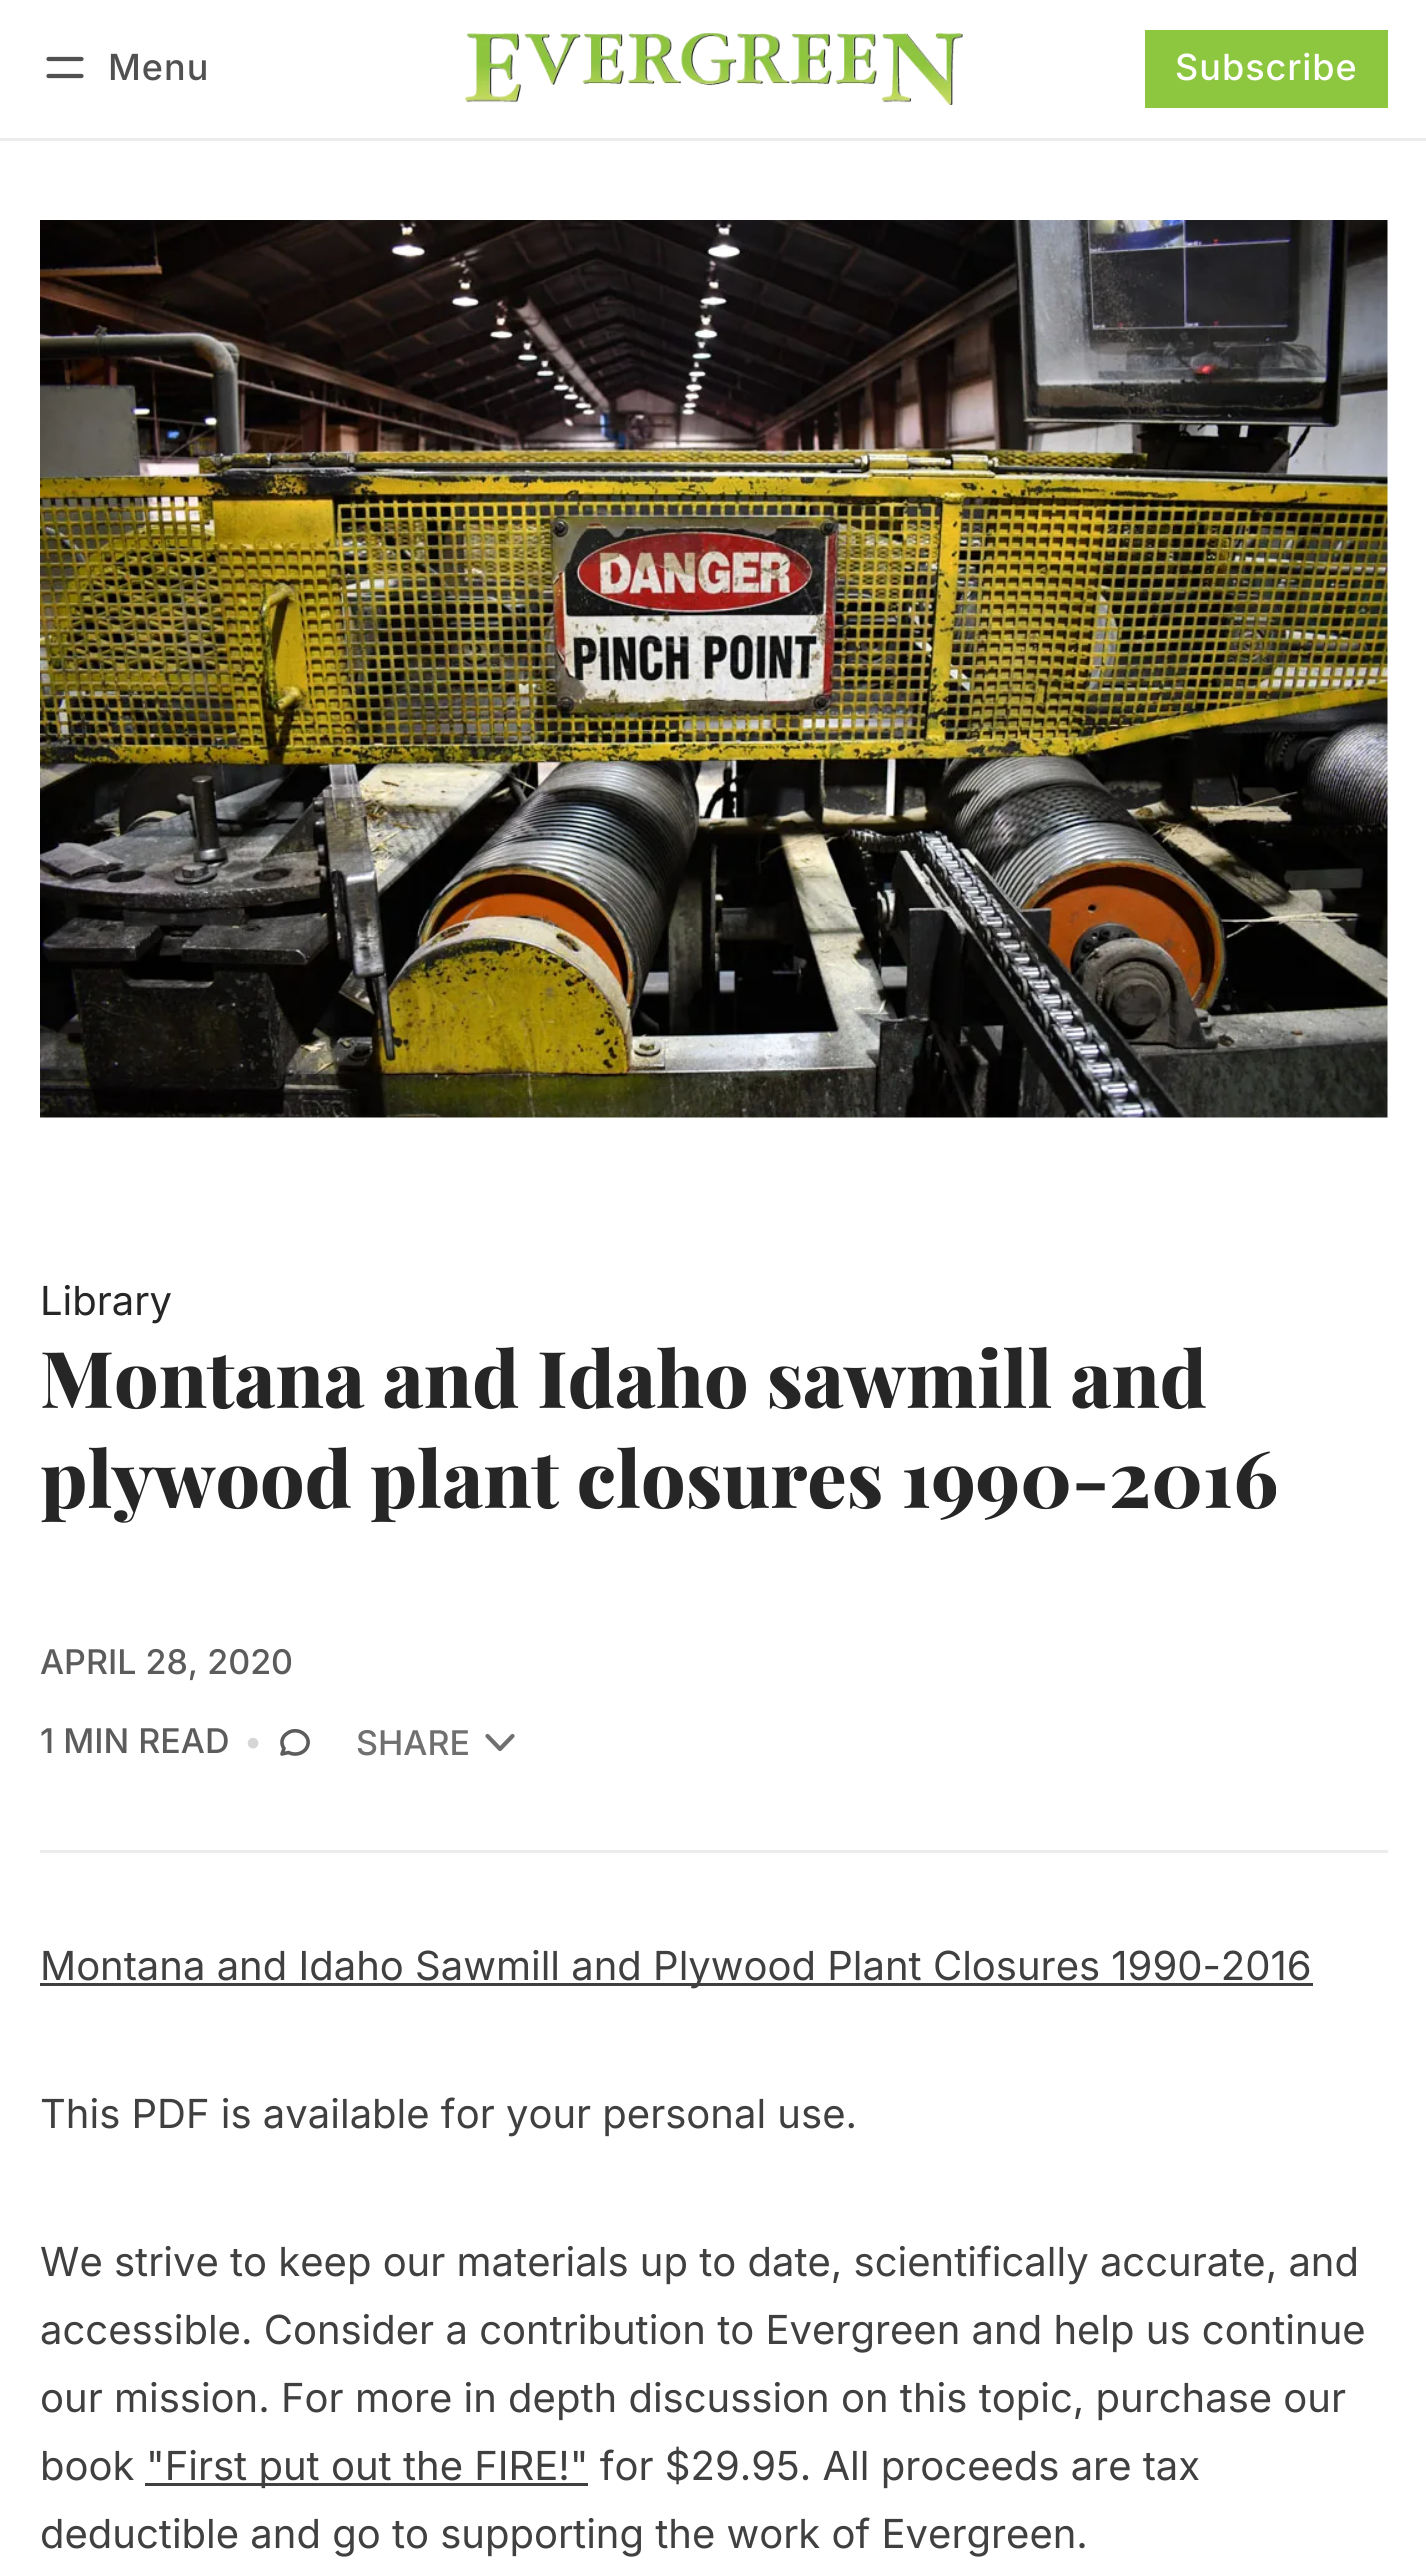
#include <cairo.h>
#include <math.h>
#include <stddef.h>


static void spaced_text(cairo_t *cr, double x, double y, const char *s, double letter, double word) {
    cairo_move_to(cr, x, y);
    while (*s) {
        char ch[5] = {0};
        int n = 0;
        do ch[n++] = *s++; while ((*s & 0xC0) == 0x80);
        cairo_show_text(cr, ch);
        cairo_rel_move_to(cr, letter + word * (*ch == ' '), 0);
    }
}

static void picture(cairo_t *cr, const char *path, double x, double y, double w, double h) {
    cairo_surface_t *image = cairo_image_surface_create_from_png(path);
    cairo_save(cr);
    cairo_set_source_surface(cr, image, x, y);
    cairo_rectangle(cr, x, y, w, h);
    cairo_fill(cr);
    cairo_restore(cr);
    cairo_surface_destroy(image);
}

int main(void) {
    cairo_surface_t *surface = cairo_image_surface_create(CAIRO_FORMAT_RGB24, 1426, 2575);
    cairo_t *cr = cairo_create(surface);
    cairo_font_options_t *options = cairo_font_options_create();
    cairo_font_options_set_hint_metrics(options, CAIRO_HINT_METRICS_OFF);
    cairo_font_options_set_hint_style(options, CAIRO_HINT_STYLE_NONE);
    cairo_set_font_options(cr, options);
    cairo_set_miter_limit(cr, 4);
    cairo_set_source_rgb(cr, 1, 1, 1);
    cairo_paint(cr);
    cairo_set_source_rgb(cr, 0.922, 0.922, 0.922);
    cairo_rectangle(cr, 0, 138, 1426, 3);
    cairo_fill(cr);
    cairo_new_path(cr);
    cairo_move_to(cr, 48.5, 59);
    cairo_line_to(cr, 81.5, 59);
    cairo_move_to(cr, 48.5, 76);
    cairo_line_to(cr, 81.5, 76);
    cairo_set_source_rgb(cr, 0.318, 0.318, 0.318);
    cairo_set_line_width(cr, 4.2);
    cairo_set_line_cap(cr, CAIRO_LINE_CAP_ROUND);
    cairo_set_line_join(cr, CAIRO_LINE_JOIN_ROUND);
    cairo_stroke(cr);
    cairo_select_font_face(cr, "Inter Medium", CAIRO_FONT_SLANT_NORMAL, CAIRO_FONT_WEIGHT_NORMAL);
    cairo_set_font_size(cr, 36);
    spaced_text(cr, 108, 80, "Menu", 1, 0);
    picture(cr, "img1.png", 465, 33, 498, 72);
    cairo_set_source_rgb(cr, 0.553, 0.776, 0.247);
    cairo_rectangle(cr, 1145, 30, 243, 78);
    cairo_fill(cr);
    cairo_set_source_rgb(cr, 1, 1, 1);
    spaced_text(cr, 1175, 80, "Subscribe", 1, 0);
    picture(cr, "img2.png", 40, 220, 1348, 898);
    cairo_select_font_face(cr, "Inter", CAIRO_FONT_SLANT_NORMAL, CAIRO_FONT_WEIGHT_NORMAL);
    cairo_set_font_size(cr, 40);
    cairo_set_source_rgb(cr, 0.149, 0.149, 0.149);
    cairo_move_to(cr, 40, 1315);
    cairo_show_text(cr, "Library");
    cairo_select_font_face(cr, "Playfair Display ExtraBold", CAIRO_FONT_SLANT_NORMAL, CAIRO_FONT_WEIGHT_NORMAL);
    cairo_set_font_size(cr, 78.25);
    cairo_move_to(cr, 40, 1408);
    cairo_show_text(cr, "Montana and Idaho sawmill and");
    cairo_move_to(cr, 40, 1508);
    cairo_show_text(cr, "plywood plant closures 1990-2016");
    cairo_set_source_rgb(cr, 0.922, 0.922, 0.922);
    cairo_rectangle(cr, 40, 1850, 1348, 3);
    cairo_fill(cr);
    cairo_select_font_face(cr, "Inter Medium", CAIRO_FONT_SLANT_NORMAL, CAIRO_FONT_WEIGHT_NORMAL);
    cairo_set_font_size(cr, 34);
    cairo_set_source_rgb(cr, 0.361, 0.361, 0.361);
    cairo_move_to(cr, 40, 1674);
    cairo_show_text(cr, "APRIL 28, 2020");
    cairo_move_to(cr, 40, 1753);
    cairo_show_text(cr, "1 MIN READ");
    cairo_set_source_rgb(cr, 0.839, 0.839, 0.839);
    cairo_move_to(cr, 244, 1753);
    cairo_show_text(cr, "•");
    cairo_new_path(cr);
    cairo_move_to(cr, 282, 1754);
    cairo_line_to(cr, 284, 1748.5);
    cairo_curve_to(cr, 280.5, 1743.5, 281.5, 1737, 287, 1733.5);
    cairo_curve_to(cr, 292, 1729.5, 299.5, 1730, 304, 1734);
    cairo_curve_to(cr, 309, 1738, 309.5, 1744.5, 305.5, 1749.5);
    cairo_curve_to(cr, 301.5, 1754, 294.5, 1755.5, 288.5, 1752.5);
    cairo_line_to(cr, 282, 1754);
    cairo_set_source_rgb(cr, 0.361, 0.361, 0.361);
    cairo_set_line_width(cr, 3.6);
    cairo_stroke(cr);
    cairo_set_source_rgb(cr, 0.439, 0.439, 0.439);
    cairo_move_to(cr, 356, 1755);
    cairo_show_text(cr, "SHARE");
    cairo_new_path(cr);
    cairo_move_to(cr, 487.5, 1736);
    cairo_line_to(cr, 500, 1749);
    cairo_line_to(cr, 512.5, 1736);
    cairo_set_line_width(cr, 4.2);
    cairo_stroke(cr);
    cairo_set_source_rgb(cr, 0.251, 0.251, 0.251);
    cairo_rectangle(cr, 40, 1983, 1273, 3);
    cairo_fill(cr);
    cairo_select_font_face(cr, "Inter", CAIRO_FONT_SLANT_NORMAL, CAIRO_FONT_WEIGHT_NORMAL);
    cairo_set_font_size(cr, 40);
    cairo_move_to(cr, 40, 1980);
    cairo_show_text(cr, "Montana and Idaho Sawmill and Plywood Plant Closures 1990-2016");
    cairo_move_to(cr, 40, 2128);
    cairo_show_text(cr, "This PDF is available for your personal use.");
    cairo_move_to(cr, 40, 2276);
    cairo_show_text(cr, "We strive to keep our materials up to date, scientifically accurate, and");
    cairo_move_to(cr, 40, 2344);
    cairo_show_text(cr, "accessible. Consider a contribution to Evergreen and help us continue");
    cairo_move_to(cr, 40, 2412);
    cairo_show_text(cr, "our mission. For more in depth discussion on this topic, purchase our");
    cairo_move_to(cr, 40, 2480);
    cairo_show_text(cr, "book");
    cairo_rectangle(cr, 145, 2483, 443, 3);
    cairo_fill(cr);
    cairo_move_to(cr, 146, 2480);
    cairo_show_text(cr, "\"First put out the FIRE!\" for $29.95. All proceeds are tax");
    cairo_move_to(cr, 40, 2548);
    cairo_show_text(cr, "deductible and go to supporting the work of Evergreen.");
    cairo_surface_write_to_png(surface, "page.png");
    cairo_font_options_destroy(options);
    cairo_destroy(cr);
    cairo_surface_destroy(surface);
    return 0;
}
